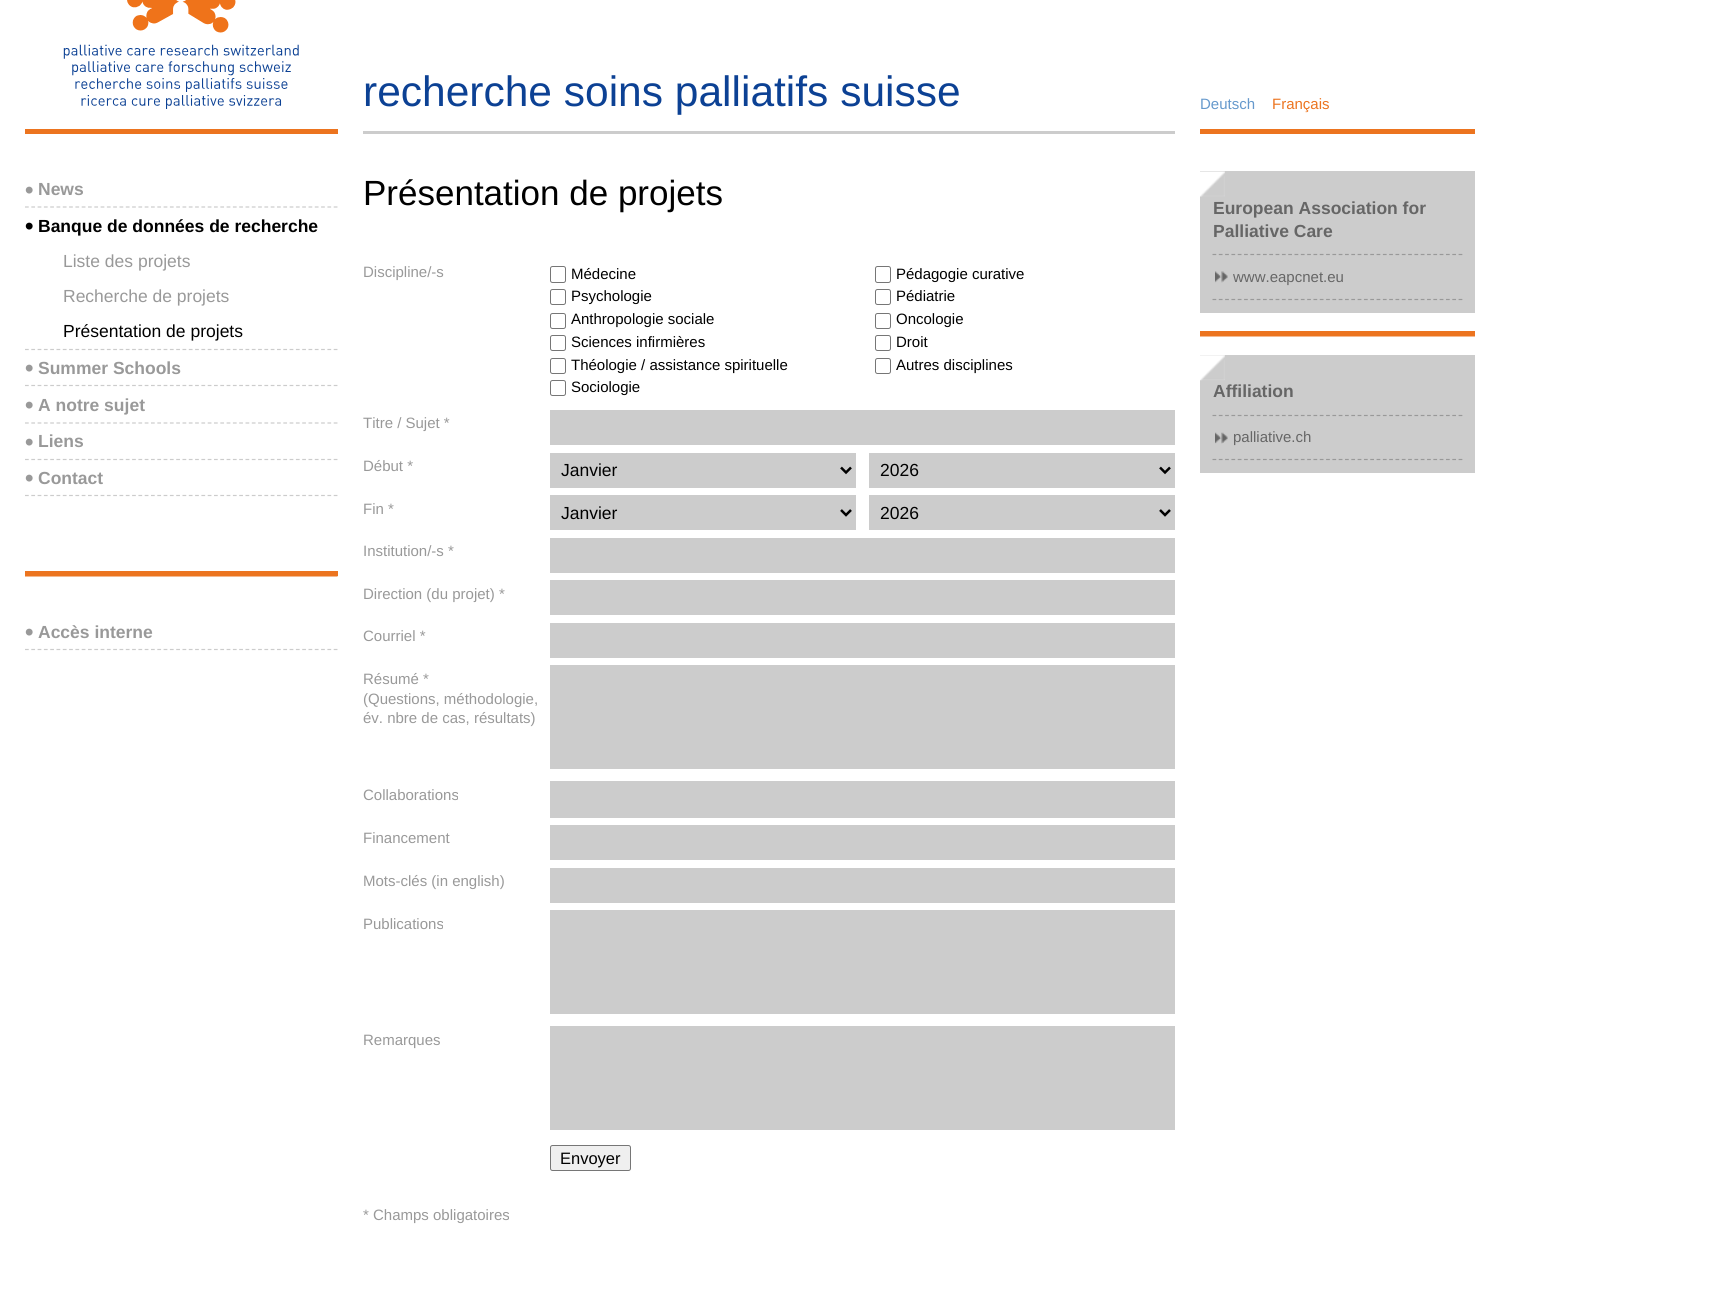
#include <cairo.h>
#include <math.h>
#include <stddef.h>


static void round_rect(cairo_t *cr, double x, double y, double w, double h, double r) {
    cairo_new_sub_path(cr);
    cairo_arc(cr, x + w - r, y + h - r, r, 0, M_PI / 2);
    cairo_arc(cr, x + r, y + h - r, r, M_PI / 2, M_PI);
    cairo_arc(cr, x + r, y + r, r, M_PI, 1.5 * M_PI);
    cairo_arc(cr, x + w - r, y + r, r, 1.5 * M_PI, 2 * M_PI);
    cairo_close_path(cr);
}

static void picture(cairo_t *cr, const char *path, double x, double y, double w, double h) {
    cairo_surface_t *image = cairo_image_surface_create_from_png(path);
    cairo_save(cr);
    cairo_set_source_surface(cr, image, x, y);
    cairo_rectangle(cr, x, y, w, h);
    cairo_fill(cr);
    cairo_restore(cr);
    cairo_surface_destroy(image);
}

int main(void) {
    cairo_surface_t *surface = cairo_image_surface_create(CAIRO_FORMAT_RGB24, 1722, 1312);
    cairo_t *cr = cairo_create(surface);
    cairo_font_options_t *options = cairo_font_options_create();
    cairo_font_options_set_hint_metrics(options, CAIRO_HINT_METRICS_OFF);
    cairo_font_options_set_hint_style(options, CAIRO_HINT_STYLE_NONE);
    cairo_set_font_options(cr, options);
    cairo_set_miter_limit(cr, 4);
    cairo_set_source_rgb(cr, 1, 1, 1);
    cairo_paint(cr);
    cairo_set_source_rgb(cr, 0.922, 0.455, 0.122);
    cairo_rectangle(cr, 25, 129, 313, 5);
    cairo_fill(cr);
    picture(cr, "img1.png", 63, 0, 236, 109);
    cairo_set_source_rgb(cr, 0.8, 0.8, 0.8);
    cairo_rectangle(cr, 363, 131, 812, 3);
    cairo_fill(cr);
    cairo_select_font_face(cr, "Liberation Sans", CAIRO_FONT_SLANT_NORMAL, CAIRO_FONT_WEIGHT_NORMAL);
    cairo_set_font_size(cr, 42.5);
    cairo_set_source_rgb(cr, 0.047, 0.255, 0.58);
    cairo_move_to(cr, 363, 106);
    cairo_show_text(cr, "recherche soins palliatifs suisse");
    cairo_set_source_rgb(cr, 0.922, 0.455, 0.122);
    cairo_rectangle(cr, 1200, 129, 275, 5);
    cairo_fill(cr);
    cairo_set_font_size(cr, 15);
    cairo_set_source_rgb(cr, 0.4, 0.6, 0.8);
    cairo_move_to(cr, 1200, 109);
    cairo_show_text(cr, "Deutsch");
    cairo_set_source_rgb(cr, 0.922, 0.455, 0.122);
    cairo_move_to(cr, 1272, 109);
    cairo_show_text(cr, "Français");
    cairo_new_path(cr);
    cairo_move_to(cr, 25, 207);
    cairo_line_to(cr, 337.5, 207);
    cairo_set_source_rgb(cr, 0.8, 0.8, 0.8);
    cairo_set_line_width(cr, 1.2);
    cairo_set_dash(cr, (double[]){3.75, 2.55}, 2, 0);
    cairo_stroke(cr);
    cairo_select_font_face(cr, "Liberation Sans", CAIRO_FONT_SLANT_NORMAL, CAIRO_FONT_WEIGHT_BOLD);
    cairo_set_font_size(cr, 24);
    cairo_set_source_rgb(cr, 0.6, 0.6, 0.6);
    cairo_move_to(cr, 25, 198);
    cairo_show_text(cr, "•");
    cairo_set_font_size(cr, 17.5);
    cairo_move_to(cr, 38, 195);
    cairo_show_text(cr, "News");
    cairo_new_path(cr);
    cairo_move_to(cr, 25, 349.5);
    cairo_line_to(cr, 337.5, 349.5);
    cairo_set_source_rgb(cr, 0.8, 0.8, 0.8);
    cairo_stroke(cr);
    cairo_set_font_size(cr, 24);
    cairo_set_source_rgb(cr, 0, 0, 0);
    cairo_move_to(cr, 25, 234);
    cairo_show_text(cr, "•");
    cairo_set_font_size(cr, 17.5);
    cairo_move_to(cr, 38, 232);
    cairo_show_text(cr, "Banque de données de recherche");
    cairo_select_font_face(cr, "Liberation Sans", CAIRO_FONT_SLANT_NORMAL, CAIRO_FONT_WEIGHT_NORMAL);
    cairo_set_source_rgb(cr, 0.6, 0.6, 0.6);
    cairo_move_to(cr, 63, 267);
    cairo_show_text(cr, "Liste des projets");
    cairo_move_to(cr, 63, 302);
    cairo_show_text(cr, "Recherche de projets");
    cairo_set_source_rgb(cr, 0, 0, 0);
    cairo_move_to(cr, 63, 337);
    cairo_show_text(cr, "Présentation de projets");
    cairo_new_path(cr);
    cairo_move_to(cr, 25, 385.5);
    cairo_line_to(cr, 337.5, 385.5);
    cairo_set_source_rgb(cr, 0.8, 0.8, 0.8);
    cairo_stroke(cr);
    cairo_select_font_face(cr, "Liberation Sans", CAIRO_FONT_SLANT_NORMAL, CAIRO_FONT_WEIGHT_BOLD);
    cairo_set_font_size(cr, 24);
    cairo_set_source_rgb(cr, 0.6, 0.6, 0.6);
    cairo_move_to(cr, 25, 376);
    cairo_show_text(cr, "•");
    cairo_set_font_size(cr, 17.5);
    cairo_move_to(cr, 38, 374);
    cairo_show_text(cr, "Summer Schools");
    cairo_new_path(cr);
    cairo_move_to(cr, 25, 423);
    cairo_line_to(cr, 337.5, 423);
    cairo_set_source_rgb(cr, 0.8, 0.8, 0.8);
    cairo_stroke(cr);
    cairo_set_font_size(cr, 24);
    cairo_set_source_rgb(cr, 0.6, 0.6, 0.6);
    cairo_move_to(cr, 25, 413);
    cairo_show_text(cr, "•");
    cairo_set_font_size(cr, 17.5);
    cairo_move_to(cr, 38, 411);
    cairo_show_text(cr, "A notre sujet");
    cairo_new_path(cr);
    cairo_move_to(cr, 25, 459.5);
    cairo_line_to(cr, 337.5, 459.5);
    cairo_set_source_rgb(cr, 0.8, 0.8, 0.8);
    cairo_stroke(cr);
    cairo_set_font_size(cr, 24);
    cairo_set_source_rgb(cr, 0.6, 0.6, 0.6);
    cairo_move_to(cr, 25, 450);
    cairo_show_text(cr, "•");
    cairo_set_font_size(cr, 17.5);
    cairo_move_to(cr, 38, 447);
    cairo_show_text(cr, "Liens");
    cairo_new_path(cr);
    cairo_move_to(cr, 25, 495.5);
    cairo_line_to(cr, 337.5, 495.5);
    cairo_set_source_rgb(cr, 0.8, 0.8, 0.8);
    cairo_stroke(cr);
    cairo_set_font_size(cr, 24);
    cairo_set_source_rgb(cr, 0.6, 0.6, 0.6);
    cairo_move_to(cr, 25, 486);
    cairo_show_text(cr, "•");
    cairo_set_font_size(cr, 17.5);
    cairo_move_to(cr, 38, 484);
    cairo_show_text(cr, "Contact");
    cairo_set_source_rgb(cr, 0.922, 0.455, 0.122);
    cairo_rectangle(cr, 25, 571, 313, 5);
    cairo_fill(cr);
    picture(cr, "img2.png", 25, 576, 313, 1);
    cairo_new_path(cr);
    cairo_move_to(cr, 25, 649.5);
    cairo_line_to(cr, 337.5, 649.5);
    cairo_set_source_rgb(cr, 0.8, 0.8, 0.8);
    cairo_stroke(cr);
    cairo_set_font_size(cr, 24);
    cairo_set_source_rgb(cr, 0.6, 0.6, 0.6);
    cairo_move_to(cr, 25, 640);
    cairo_show_text(cr, "•");
    cairo_set_font_size(cr, 17.5);
    cairo_move_to(cr, 38, 638);
    cairo_show_text(cr, "Accès interne");
    cairo_select_font_face(cr, "Liberation Sans", CAIRO_FONT_SLANT_NORMAL, CAIRO_FONT_WEIGHT_NORMAL);
    cairo_set_font_size(cr, 35);
    cairo_set_source_rgb(cr, 0, 0, 0);
    cairo_move_to(cr, 363, 205);
    cairo_show_text(cr, "Présentation de projets");
    cairo_set_font_size(cr, 15);
    cairo_set_source_rgb(cr, 0.6, 0.6, 0.6);
    cairo_move_to(cr, 363, 277);
    cairo_show_text(cr, "Discipline/-s");
    round_rect(cr, 550.5, 266.5, 15, 16, 2);
    cairo_set_source_rgb(cr, 0.463, 0.463, 0.463);
    cairo_set_line_width(cr, 1);
    cairo_set_dash(cr, NULL, 0, 0);
    cairo_stroke(cr);
    cairo_set_source_rgb(cr, 0, 0, 0);
    cairo_move_to(cr, 571, 279);
    cairo_show_text(cr, "Médecine");
    round_rect(cr, 550.5, 289.5, 15, 15, 2);
    cairo_set_source_rgb(cr, 0.463, 0.463, 0.463);
    cairo_stroke(cr);
    cairo_set_source_rgb(cr, 0, 0, 0);
    cairo_move_to(cr, 571, 301);
    cairo_show_text(cr, "Psychologie");
    round_rect(cr, 550.5, 313.5, 15, 15, 2);
    cairo_set_source_rgb(cr, 0.463, 0.463, 0.463);
    cairo_stroke(cr);
    cairo_set_source_rgb(cr, 0, 0, 0);
    cairo_move_to(cr, 571, 324);
    cairo_show_text(cr, "Anthropologie sociale");
    round_rect(cr, 550.5, 335.5, 15, 15, 2);
    cairo_set_source_rgb(cr, 0.463, 0.463, 0.463);
    cairo_stroke(cr);
    cairo_set_source_rgb(cr, 0, 0, 0);
    cairo_move_to(cr, 571, 347);
    cairo_show_text(cr, "Sciences infirmières");
    round_rect(cr, 550.5, 358.5, 15, 15, 2);
    cairo_set_source_rgb(cr, 0.463, 0.463, 0.463);
    cairo_stroke(cr);
    cairo_set_source_rgb(cr, 0, 0, 0);
    cairo_move_to(cr, 571, 370);
    cairo_show_text(cr, "Théologie / assistance spirituelle");
    round_rect(cr, 550.5, 380.5, 15, 15, 2);
    cairo_set_source_rgb(cr, 0.463, 0.463, 0.463);
    cairo_stroke(cr);
    cairo_set_source_rgb(cr, 0, 0, 0);
    cairo_move_to(cr, 571, 392);
    cairo_show_text(cr, "Sociologie");
    round_rect(cr, 875.5, 266.5, 15, 16, 2);
    cairo_set_source_rgb(cr, 0.463, 0.463, 0.463);
    cairo_stroke(cr);
    cairo_set_source_rgb(cr, 0, 0, 0);
    cairo_move_to(cr, 896, 279);
    cairo_show_text(cr, "Pédagogie curative");
    round_rect(cr, 875.5, 289.5, 15, 15, 2);
    cairo_set_source_rgb(cr, 0.463, 0.463, 0.463);
    cairo_stroke(cr);
    cairo_set_source_rgb(cr, 0, 0, 0);
    cairo_move_to(cr, 896, 301);
    cairo_show_text(cr, "Pédiatrie");
    round_rect(cr, 875.5, 313.5, 15, 15, 2);
    cairo_set_source_rgb(cr, 0.463, 0.463, 0.463);
    cairo_stroke(cr);
    cairo_set_source_rgb(cr, 0, 0, 0);
    cairo_move_to(cr, 896, 324);
    cairo_show_text(cr, "Oncologie");
    round_rect(cr, 875.5, 335.5, 15, 15, 2);
    cairo_set_source_rgb(cr, 0.463, 0.463, 0.463);
    cairo_stroke(cr);
    cairo_set_source_rgb(cr, 0, 0, 0);
    cairo_move_to(cr, 896, 347);
    cairo_show_text(cr, "Droit");
    round_rect(cr, 875.5, 358.5, 15, 15, 2);
    cairo_set_source_rgb(cr, 0.463, 0.463, 0.463);
    cairo_stroke(cr);
    cairo_set_source_rgb(cr, 0, 0, 0);
    cairo_move_to(cr, 896, 370);
    cairo_show_text(cr, "Autres disciplines");
    cairo_set_source_rgb(cr, 0.6, 0.6, 0.6);
    cairo_move_to(cr, 363, 428);
    cairo_show_text(cr, "Titre / Sujet *");
    cairo_set_source_rgb(cr, 0.8, 0.8, 0.8);
    cairo_rectangle(cr, 550, 410, 625, 35);
    cairo_fill(cr);
    cairo_set_source_rgb(cr, 0.6, 0.6, 0.6);
    cairo_move_to(cr, 363, 471);
    cairo_show_text(cr, "Début *");
    cairo_set_source_rgb(cr, 0.8, 0.8, 0.8);
    cairo_rectangle(cr, 550, 453, 306, 35);
    cairo_fill(cr);
    cairo_new_path(cr);
    cairo_move_to(cr, 841, 467.5);
    cairo_line_to(cr, 846, 472.5);
    cairo_line_to(cr, 851, 467.5);
    cairo_set_source_rgb(cr, 0, 0, 0);
    cairo_set_line_width(cr, 2.5);
    cairo_stroke(cr);
    cairo_set_font_size(cr, 17.5);
    cairo_move_to(cr, 561, 476);
    cairo_show_text(cr, "Janvier");
    cairo_set_source_rgb(cr, 0.8, 0.8, 0.8);
    cairo_rectangle(cr, 869, 453, 306, 35);
    cairo_fill(cr);
    cairo_new_path(cr);
    cairo_move_to(cr, 1160, 467.5);
    cairo_line_to(cr, 1165, 472.5);
    cairo_line_to(cr, 1170, 467.5);
    cairo_set_source_rgb(cr, 0, 0, 0);
    cairo_stroke(cr);
    cairo_move_to(cr, 880, 476);
    cairo_show_text(cr, "2026");
    cairo_set_font_size(cr, 15);
    cairo_set_source_rgb(cr, 0.6, 0.6, 0.6);
    cairo_move_to(cr, 363, 514);
    cairo_show_text(cr, "Fin *");
    cairo_set_source_rgb(cr, 0.8, 0.8, 0.8);
    cairo_rectangle(cr, 550, 495, 306, 35);
    cairo_fill(cr);
    cairo_new_path(cr);
    cairo_move_to(cr, 841, 510);
    cairo_line_to(cr, 846, 515);
    cairo_line_to(cr, 851, 510);
    cairo_set_source_rgb(cr, 0, 0, 0);
    cairo_stroke(cr);
    cairo_set_font_size(cr, 17.5);
    cairo_move_to(cr, 561, 519);
    cairo_show_text(cr, "Janvier");
    cairo_set_source_rgb(cr, 0.8, 0.8, 0.8);
    cairo_rectangle(cr, 869, 495, 306, 35);
    cairo_fill(cr);
    cairo_new_path(cr);
    cairo_move_to(cr, 1160, 510);
    cairo_line_to(cr, 1165, 515);
    cairo_line_to(cr, 1170, 510);
    cairo_set_source_rgb(cr, 0, 0, 0);
    cairo_stroke(cr);
    cairo_move_to(cr, 880, 519);
    cairo_show_text(cr, "2026");
    cairo_set_font_size(cr, 15);
    cairo_set_source_rgb(cr, 0.6, 0.6, 0.6);
    cairo_move_to(cr, 363, 556);
    cairo_show_text(cr, "Institution/-s *");
    cairo_set_source_rgb(cr, 0.8, 0.8, 0.8);
    cairo_rectangle(cr, 550, 538, 625, 35);
    cairo_fill(cr);
    cairo_set_source_rgb(cr, 0.6, 0.6, 0.6);
    cairo_move_to(cr, 363, 599);
    cairo_show_text(cr, "Direction (du projet) *");
    cairo_set_source_rgb(cr, 0.8, 0.8, 0.8);
    cairo_rectangle(cr, 550, 580, 625, 35);
    cairo_fill(cr);
    cairo_set_source_rgb(cr, 0.6, 0.6, 0.6);
    cairo_move_to(cr, 363, 641);
    cairo_show_text(cr, "Courriel *");
    cairo_set_source_rgb(cr, 0.8, 0.8, 0.8);
    cairo_rectangle(cr, 550, 623, 625, 35);
    cairo_fill(cr);
    cairo_set_source_rgb(cr, 0.6, 0.6, 0.6);
    cairo_move_to(cr, 363, 684);
    cairo_show_text(cr, "Résumé *");
    cairo_move_to(cr, 363, 704);
    cairo_show_text(cr, "(Questions, méthodologie,");
    cairo_move_to(cr, 363, 723);
    cairo_show_text(cr, "év. nbre de cas, résultats)");
    cairo_set_source_rgb(cr, 0.8, 0.8, 0.8);
    cairo_rectangle(cr, 550, 665, 625, 104);
    cairo_fill(cr);
    cairo_set_source_rgb(cr, 0.6, 0.6, 0.6);
    cairo_move_to(cr, 363, 800);
    cairo_show_text(cr, "Collaborations");
    cairo_set_source_rgb(cr, 0.8, 0.8, 0.8);
    cairo_rectangle(cr, 550, 781, 625, 37);
    cairo_fill(cr);
    cairo_set_source_rgb(cr, 0.6, 0.6, 0.6);
    cairo_move_to(cr, 363, 843);
    cairo_show_text(cr, "Financement");
    cairo_set_source_rgb(cr, 0.8, 0.8, 0.8);
    cairo_rectangle(cr, 550, 825, 625, 35);
    cairo_fill(cr);
    cairo_set_source_rgb(cr, 0.6, 0.6, 0.6);
    cairo_move_to(cr, 363, 886);
    cairo_show_text(cr, "Mots-clés (in english)");
    cairo_set_source_rgb(cr, 0.8, 0.8, 0.8);
    cairo_rectangle(cr, 550, 868, 625, 35);
    cairo_fill(cr);
    cairo_set_source_rgb(cr, 0.6, 0.6, 0.6);
    cairo_move_to(cr, 363, 929);
    cairo_show_text(cr, "Publications");
    cairo_set_source_rgb(cr, 0.8, 0.8, 0.8);
    cairo_rectangle(cr, 550, 910, 625, 104);
    cairo_fill(cr);
    cairo_set_source_rgb(cr, 0.6, 0.6, 0.6);
    cairo_move_to(cr, 363, 1045);
    cairo_show_text(cr, "Remarques");
    cairo_set_source_rgb(cr, 0.8, 0.8, 0.8);
    cairo_rectangle(cr, 550, 1026, 625, 104);
    cairo_fill(cr);
    cairo_set_source_rgb(cr, 0.937, 0.937, 0.937);
    round_rect(cr, 550.5, 1145.5, 80, 25, 2);
    cairo_fill_preserve(cr);
    cairo_set_source_rgb(cr, 0.463, 0.463, 0.463);
    cairo_set_line_width(cr, 1);
    cairo_stroke(cr);
    cairo_set_font_size(cr, 16.5);
    cairo_set_source_rgb(cr, 0, 0, 0);
    cairo_move_to(cr, 560, 1164);
    cairo_show_text(cr, "Envoyer");
    cairo_set_font_size(cr, 15);
    cairo_set_source_rgb(cr, 0.6, 0.6, 0.6);
    cairo_move_to(cr, 363, 1220);
    cairo_show_text(cr, "* Champs obligatoires");
    cairo_set_source_rgb(cr, 0.8, 0.8, 0.8);
    cairo_rectangle(cr, 1200, 171, 275, 142);
    cairo_fill(cr);
    picture(cr, "img3.png", 1200, 171, 25, 26);
    cairo_select_font_face(cr, "Liberation Sans", CAIRO_FONT_SLANT_NORMAL, CAIRO_FONT_WEIGHT_BOLD);
    cairo_set_font_size(cr, 17.5);
    cairo_set_source_rgb(cr, 0.4, 0.4, 0.4);
    cairo_move_to(cr, 1213, 214);
    cairo_show_text(cr, "European Association for");
    cairo_move_to(cr, 1213, 237);
    cairo_show_text(cr, "Palliative Care");
    cairo_new_path(cr);
    cairo_move_to(cr, 1212.5, 254.5);
    cairo_line_to(cr, 1462.5, 254.5);
    cairo_set_source_rgb(cr, 0.6, 0.6, 0.6);
    cairo_set_line_width(cr, 1.2);
    cairo_set_dash(cr, (double[]){3.75, 2.56}, 2, 0);
    cairo_stroke(cr);
    cairo_new_path(cr);
    cairo_move_to(cr, 1212.5, 299.5);
    cairo_line_to(cr, 1462.5, 299.5);
    cairo_stroke(cr);
    picture(cr, "img4.png", 1215, 271, 13, 12);
    cairo_select_font_face(cr, "Liberation Sans", CAIRO_FONT_SLANT_NORMAL, CAIRO_FONT_WEIGHT_NORMAL);
    cairo_set_font_size(cr, 15);
    cairo_set_source_rgb(cr, 0.4, 0.4, 0.4);
    cairo_move_to(cr, 1233, 282);
    cairo_show_text(cr, "www.eapcnet.eu");
    cairo_set_source_rgb(cr, 0.922, 0.455, 0.122);
    cairo_rectangle(cr, 1200, 331, 275, 5);
    cairo_fill(cr);
    cairo_set_source_rgb(cr, 0.961, 0.729, 0.561);
    cairo_rectangle(cr, 1200, 336, 275, 1);
    cairo_fill(cr);
    cairo_set_source_rgb(cr, 0.8, 0.8, 0.8);
    cairo_rectangle(cr, 1200, 355, 275, 118);
    cairo_fill(cr);
    picture(cr, "img5.png", 1200, 355, 25, 26);
    cairo_select_font_face(cr, "Liberation Sans", CAIRO_FONT_SLANT_NORMAL, CAIRO_FONT_WEIGHT_BOLD);
    cairo_set_font_size(cr, 17.5);
    cairo_set_source_rgb(cr, 0.4, 0.4, 0.4);
    cairo_move_to(cr, 1213, 397);
    cairo_show_text(cr, "Affiliation");
    cairo_new_path(cr);
    cairo_move_to(cr, 1212.5, 415.5);
    cairo_line_to(cr, 1462.5, 415.5);
    cairo_set_source_rgb(cr, 0.6, 0.6, 0.6);
    cairo_stroke(cr);
    cairo_new_path(cr);
    cairo_move_to(cr, 1212.5, 459.5);
    cairo_line_to(cr, 1462.5, 459.5);
    cairo_stroke(cr);
    picture(cr, "img6.png", 1215, 432, 13, 12);
    cairo_select_font_face(cr, "Liberation Sans", CAIRO_FONT_SLANT_NORMAL, CAIRO_FONT_WEIGHT_NORMAL);
    cairo_set_font_size(cr, 15);
    cairo_set_source_rgb(cr, 0.4, 0.4, 0.4);
    cairo_move_to(cr, 1233, 442);
    cairo_show_text(cr, "palliative.ch");
    cairo_surface_write_to_png(surface, "page.png");
    cairo_font_options_destroy(options);
    cairo_destroy(cr);
    cairo_surface_destroy(surface);
    return 0;
}
